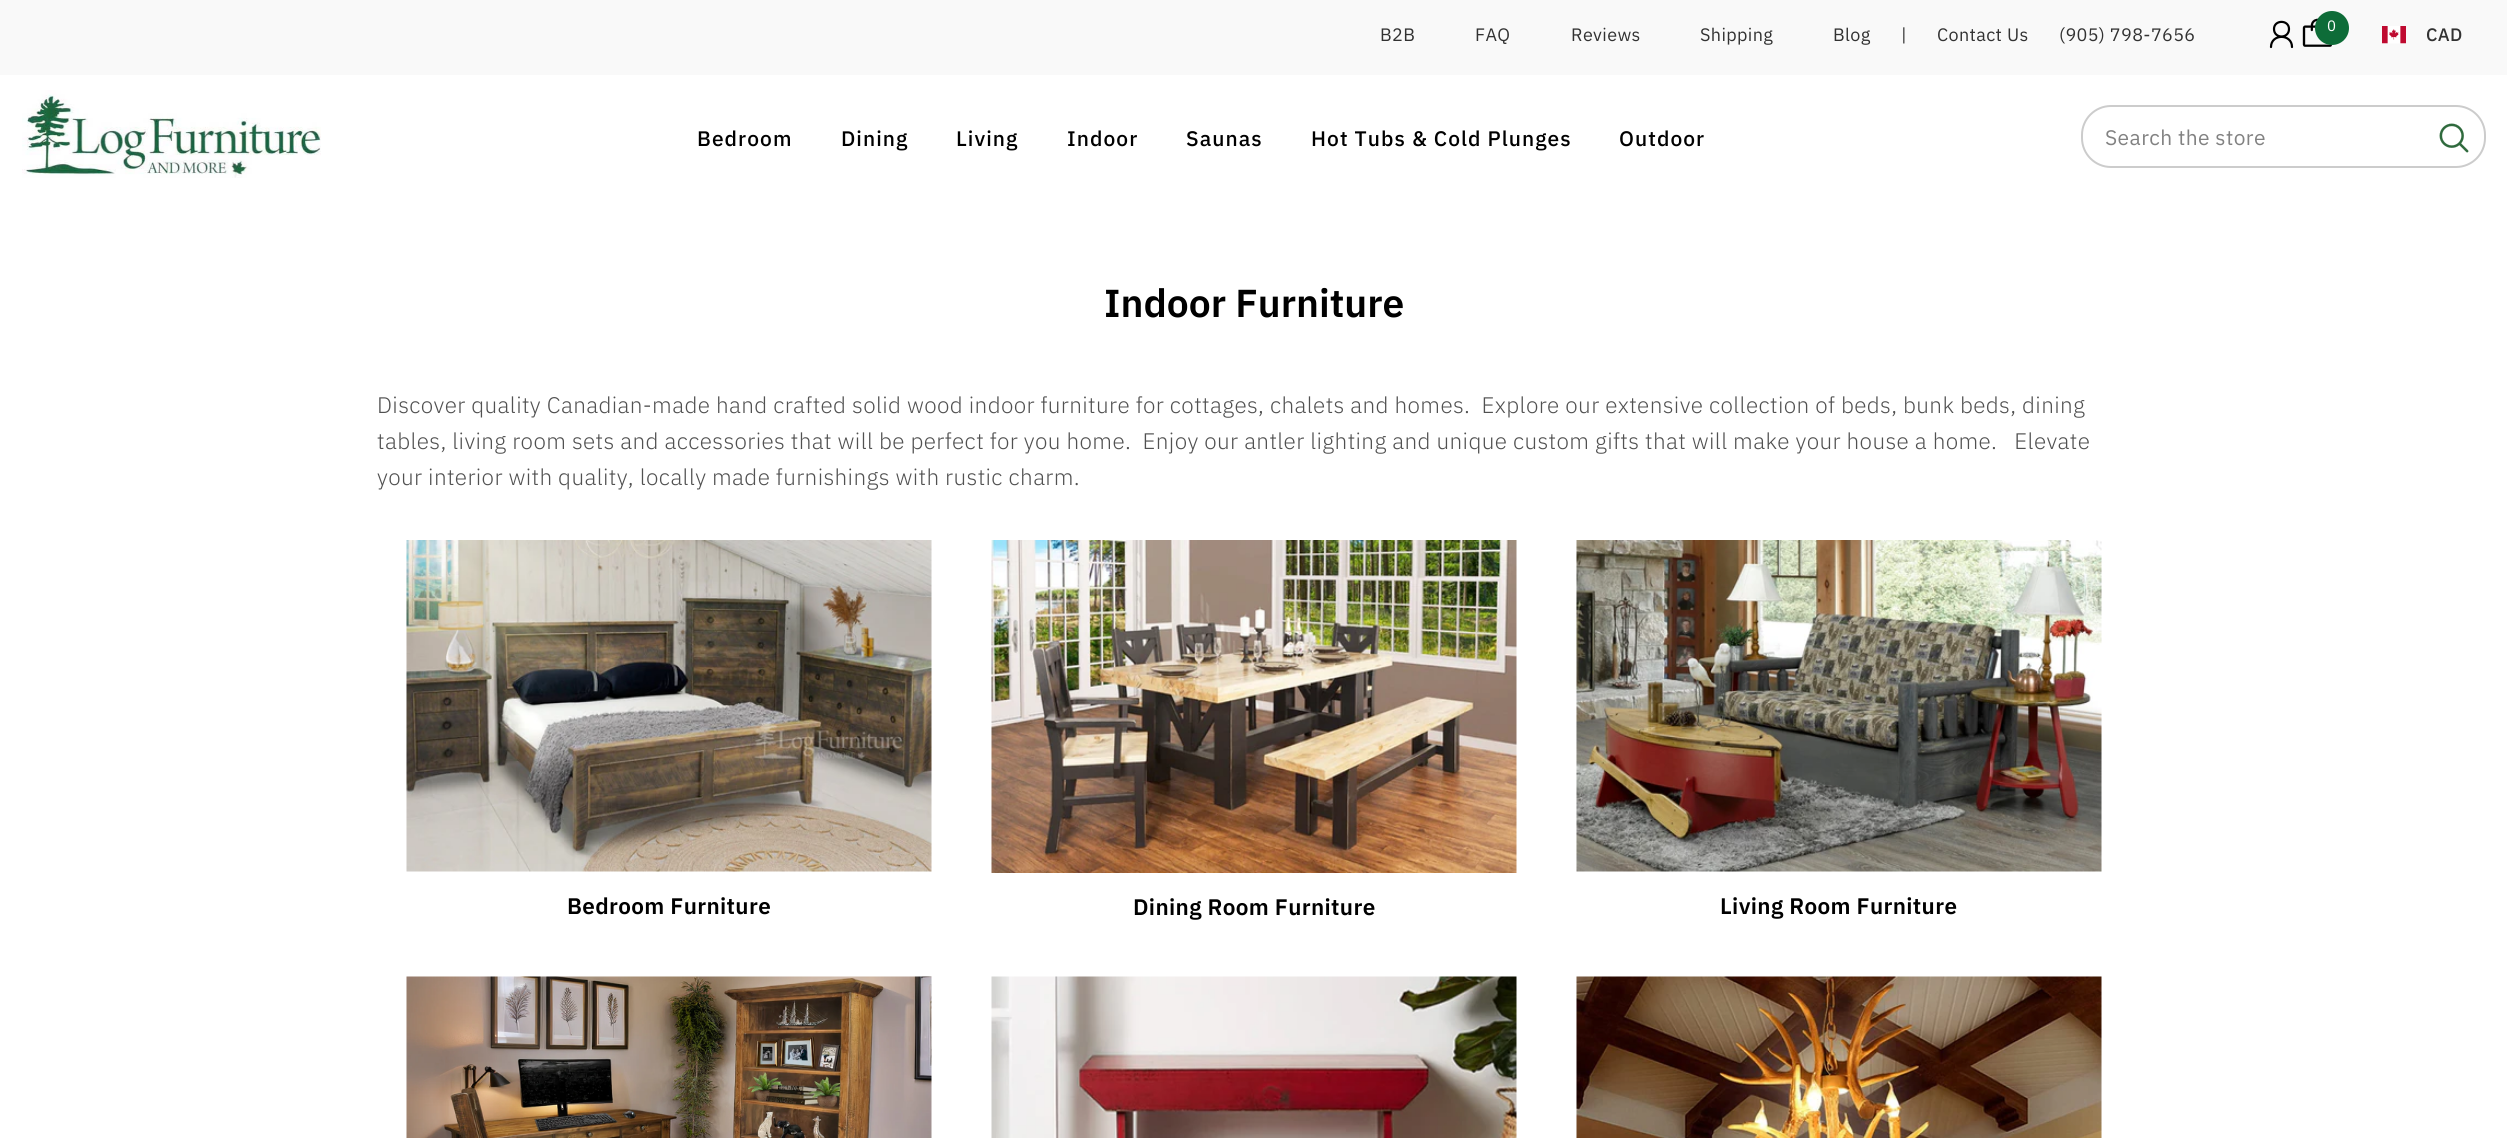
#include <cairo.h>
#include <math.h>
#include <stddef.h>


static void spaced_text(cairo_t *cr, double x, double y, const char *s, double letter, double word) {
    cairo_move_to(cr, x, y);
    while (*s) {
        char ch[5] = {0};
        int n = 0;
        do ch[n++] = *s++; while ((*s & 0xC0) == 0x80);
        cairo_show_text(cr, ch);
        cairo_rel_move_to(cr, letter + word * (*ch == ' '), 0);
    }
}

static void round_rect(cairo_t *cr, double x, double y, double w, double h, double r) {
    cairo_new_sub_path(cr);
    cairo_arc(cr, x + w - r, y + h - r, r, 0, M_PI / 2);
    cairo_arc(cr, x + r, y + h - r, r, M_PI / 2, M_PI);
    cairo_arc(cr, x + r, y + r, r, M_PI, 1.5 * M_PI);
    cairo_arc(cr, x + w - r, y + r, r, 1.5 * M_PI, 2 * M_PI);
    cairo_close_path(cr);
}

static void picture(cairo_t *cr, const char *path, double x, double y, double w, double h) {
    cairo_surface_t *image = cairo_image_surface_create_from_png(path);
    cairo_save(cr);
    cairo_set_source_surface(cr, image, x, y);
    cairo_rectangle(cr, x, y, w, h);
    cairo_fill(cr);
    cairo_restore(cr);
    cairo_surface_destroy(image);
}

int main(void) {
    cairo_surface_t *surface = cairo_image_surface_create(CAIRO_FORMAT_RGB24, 2507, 1138);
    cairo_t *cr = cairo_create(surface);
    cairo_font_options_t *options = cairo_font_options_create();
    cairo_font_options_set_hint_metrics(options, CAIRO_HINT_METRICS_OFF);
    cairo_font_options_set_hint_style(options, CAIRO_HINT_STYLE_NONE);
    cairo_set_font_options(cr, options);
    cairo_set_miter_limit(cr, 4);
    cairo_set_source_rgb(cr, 1, 1, 1);
    cairo_paint(cr);
    cairo_set_source_rgb(cr, 0.973, 0.973, 0.973);
    cairo_rectangle(cr, 0, 0, 2507, 75);
    cairo_fill(cr);
    cairo_select_font_face(cr, "IBM Plex Sans", CAIRO_FONT_SLANT_NORMAL, CAIRO_FONT_WEIGHT_NORMAL);
    cairo_set_font_size(cr, 18);
    cairo_set_source_rgb(cr, 0.196, 0.196, 0.196);
    spaced_text(cr, 1380, 41, "B2B", 0.36, 0);
    spaced_text(cr, 1475, 41, "FAQ", 0.36, 0);
    spaced_text(cr, 1571, 41, "Reviews", 0.36, 0);
    spaced_text(cr, 1700, 41, "Shipping", 0.36, 0);
    spaced_text(cr, 1833, 41, "Blog", 0.36, 0);
    spaced_text(cr, 1901, 41, "|", 0.36, 0);
    spaced_text(cr, 1937, 41, "Contact Us", 0.36, 0);
    spaced_text(cr, 2059, 41, "(905) 798-7656", 0.36, 0);
    cairo_new_path(cr);
    cairo_move_to(cr, 2289, 29);
    cairo_curve_to(cr, 2289, 19.5, 2274, 19.5, 2274, 29);
    cairo_curve_to(cr, 2274, 39, 2289, 39, 2289, 29);
    cairo_close_path(cr);
    cairo_move_to(cr, 2292, 47);
    cairo_curve_to(cr, 2292, 33.5, 2271, 33.5, 2271, 47);
    cairo_set_source_rgb(cr, 0, 0, 0);
    cairo_set_line_width(cr, 2.2);
    cairo_set_line_cap(cr, CAIRO_LINE_CAP_ROUND);
    cairo_set_line_join(cr, CAIRO_LINE_JOIN_ROUND);
    cairo_stroke(cr);
    picture(cr, "img1.png", 2302, 18, 31, 29);
    cairo_set_source_rgb(cr, 0.055, 0.424, 0.22);
    cairo_arc(cr, 2332, 28, 17, 0, 2 * M_PI);
    cairo_fill(cr);
    cairo_set_font_size(cr, 15);
    cairo_set_source_rgb(cr, 1, 1, 1);
    cairo_move_to(cr, 2327, 31);
    cairo_show_text(cr, "0");
    picture(cr, "img2.png", 2382, 26, 24, 18);
    cairo_select_font_face(cr, "IBM Plex Sans Medium", CAIRO_FONT_SLANT_NORMAL, CAIRO_FONT_WEIGHT_NORMAL);
    cairo_set_font_size(cr, 18);
    cairo_set_source_rgb(cr, 0.196, 0.196, 0.196);
    spaced_text(cr, 2426, 41, "CAD", 0.36, 0);
    picture(cr, "img3.png", 22, 90, 299, 88);
    cairo_set_font_size(cr, 21);
    cairo_set_source_rgb(cr, 0, 0, 0);
    spaced_text(cr, 697, 146, "Bedroom", 1.05, 0);
    spaced_text(cr, 841, 146, "Dining", 1.05, 0);
    spaced_text(cr, 956, 146, "Living", 1.05, 0);
    spaced_text(cr, 1067, 146, "Indoor", 1.05, 0);
    spaced_text(cr, 1186, 146, "Saunas", 1.05, 0);
    spaced_text(cr, 1311, 146, "Hot Tubs & Cold Plunges", 1.05, 0);
    spaced_text(cr, 1619, 146, "Outdoor", 1.05, 0);
    round_rect(cr, 2082, 106, 403, 61, 29);
    cairo_set_source_rgb(cr, 0.8, 0.8, 0.8);
    cairo_set_line_width(cr, 2);
    cairo_set_line_cap(cr, CAIRO_LINE_CAP_BUTT);
    cairo_set_line_join(cr, CAIRO_LINE_JOIN_MITER);
    cairo_stroke(cr);
    cairo_select_font_face(cr, "IBM Plex Sans", CAIRO_FONT_SLANT_NORMAL, CAIRO_FONT_WEIGHT_NORMAL);
    cairo_set_source_rgb(cr, 0.51, 0.51, 0.51);
    spaced_text(cr, 2105, 145, "Search the store", 0.4, 0);
    picture(cr, "img4.png", 2439, 123, 30, 30);
    cairo_select_font_face(cr, "IBM Plex Sans SemiBold", CAIRO_FONT_SLANT_NORMAL, CAIRO_FONT_WEIGHT_NORMAL);
    cairo_set_font_size(cr, 39);
    cairo_set_source_rgb(cr, 0, 0, 0);
    cairo_move_to(cr, 1104, 317);
    cairo_show_text(cr, "Indoor Furniture");
    cairo_select_font_face(cr, "IBM Plex Sans Light", CAIRO_FONT_SLANT_NORMAL, CAIRO_FONT_WEIGHT_NORMAL);
    cairo_set_font_size(cr, 22.5);
    cairo_set_source_rgb(cr, 0.318, 0.318, 0.318);
    spaced_text(cr, 377, 413, "Discover quality Canadian-made hand crafted solid wood indoor furniture for cottages, chalets and homes.  Explore our extensive collection of beds, bunk beds, dining", 0.36, 0);
    spaced_text(cr, 377, 449, "tables, living room sets and accessories that will be perfect for you home.  Enjoy our antler lighting and unique custom gifts that will make your house a home.   Elevate", 0.36, 0);
    spaced_text(cr, 377, 485, "your interior with quality, locally made furnishings with rustic charm.", 0.36, 0);
    picture(cr, "img5.png", 406, 540, 526, 332);
    cairo_select_font_face(cr, "IBM Plex Sans SemiBold", CAIRO_FONT_SLANT_NORMAL, CAIRO_FONT_WEIGHT_NORMAL);
    cairo_set_source_rgb(cr, 0, 0, 0);
    spaced_text(cr, 567, 914, "Bedroom Furniture", 0.36, 0);
    picture(cr, "img6.png", 991, 540, 526, 333);
    spaced_text(cr, 1133, 915, "Dining Room Furniture", 0.36, 0);
    picture(cr, "img7.png", 1576, 540, 526, 332);
    spaced_text(cr, 1720, 914, "Living Room Furniture", 0.36, 0);
    picture(cr, "img8.png", 406, 976, 526, 162);
    picture(cr, "img9.png", 991, 976, 526, 162);
    picture(cr, "img10.png", 1576, 976, 526, 162);
    cairo_surface_write_to_png(surface, "page.png");
    cairo_font_options_destroy(options);
    cairo_destroy(cr);
    cairo_surface_destroy(surface);
    return 0;
}
